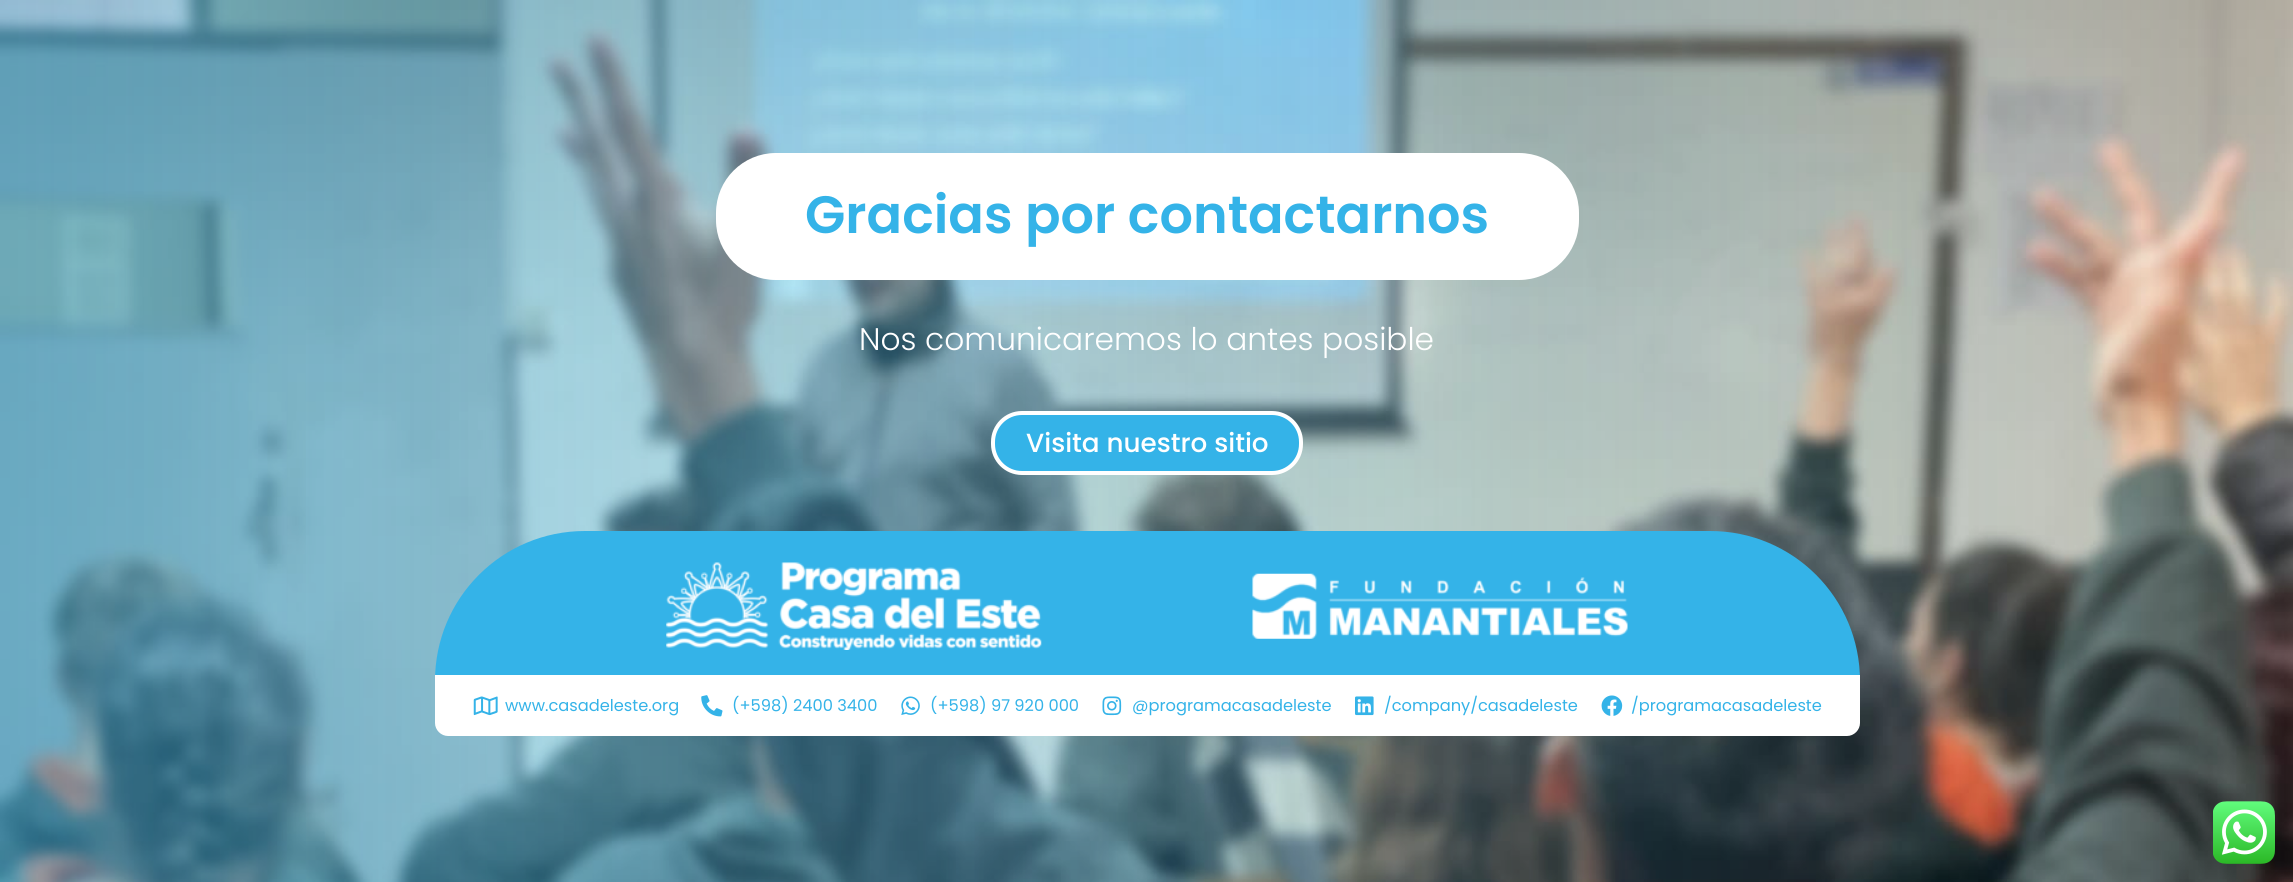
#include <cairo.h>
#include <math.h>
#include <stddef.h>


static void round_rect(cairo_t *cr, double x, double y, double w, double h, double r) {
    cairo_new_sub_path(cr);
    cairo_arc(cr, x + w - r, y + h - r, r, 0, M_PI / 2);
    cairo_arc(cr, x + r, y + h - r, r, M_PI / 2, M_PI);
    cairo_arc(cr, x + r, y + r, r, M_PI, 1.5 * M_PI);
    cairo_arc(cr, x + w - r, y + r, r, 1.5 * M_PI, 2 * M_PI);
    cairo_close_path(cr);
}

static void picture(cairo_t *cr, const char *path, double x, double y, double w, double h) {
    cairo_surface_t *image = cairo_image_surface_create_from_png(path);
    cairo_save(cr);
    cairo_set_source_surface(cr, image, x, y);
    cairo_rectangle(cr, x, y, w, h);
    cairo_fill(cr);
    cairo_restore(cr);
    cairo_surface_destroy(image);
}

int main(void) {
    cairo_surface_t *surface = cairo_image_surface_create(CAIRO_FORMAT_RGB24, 2293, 882);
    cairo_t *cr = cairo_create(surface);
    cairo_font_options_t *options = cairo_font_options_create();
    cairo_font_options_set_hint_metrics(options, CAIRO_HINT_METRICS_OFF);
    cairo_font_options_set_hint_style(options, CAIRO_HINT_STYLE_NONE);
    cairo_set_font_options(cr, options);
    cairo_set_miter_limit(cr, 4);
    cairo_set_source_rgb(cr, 1, 1, 1);
    cairo_paint(cr);
    picture(cr, "img1.png", 0, 0, 2293, 882);
    cairo_set_source_rgb(cr, 1, 1, 1);
    round_rect(cr, 716, 153, 863, 127, 60);
    cairo_fill(cr);
    cairo_select_font_face(cr, "Poppins SemiBold", CAIRO_FONT_SLANT_NORMAL, CAIRO_FONT_WEIGHT_NORMAL);
    cairo_set_font_size(cr, 52.5);
    cairo_set_source_rgb(cr, 0.204, 0.702, 0.91);
    cairo_move_to(cr, 805, 233);
    cairo_show_text(cr, "Gracias por contactarnos");
    cairo_select_font_face(cr, "Poppins Light", CAIRO_FONT_SLANT_NORMAL, CAIRO_FONT_WEIGHT_NORMAL);
    cairo_set_font_size(cr, 31.25);
    cairo_set_source_rgb(cr, 1, 1, 1);
    cairo_move_to(cr, 859, 350);
    cairo_show_text(cr, "Nos comunicaremos lo antes posible");
    cairo_set_source_rgb(cr, 0.204, 0.702, 0.91);
    round_rect(cr, 993, 413, 308, 60, 29);
    cairo_fill_preserve(cr);
    cairo_set_source_rgb(cr, 1, 1, 1);
    cairo_set_line_width(cr, 4);
    cairo_stroke(cr);
    cairo_select_font_face(cr, "Poppins Medium", CAIRO_FONT_SLANT_NORMAL, CAIRO_FONT_WEIGHT_NORMAL);
    cairo_set_font_size(cr, 26.25);
    cairo_move_to(cr, 1026, 452);
    cairo_show_text(cr, "Visita nuestro sitio");
    cairo_set_source_rgb(cr, 0.204, 0.702, 0.91);
    cairo_new_path(cr);
    cairo_move_to(cr, 585, 531);
    cairo_line_to(cr, 1710, 531);
    cairo_curve_to(cr, 1793, 531, 1860, 598, 1860, 681);
    cairo_line_to(cr, 435, 681);
    cairo_curve_to(cr, 435, 598, 502, 531, 585, 531);
    cairo_close_path(cr);
    cairo_fill(cr);
    picture(cr, "img2.png", 666, 562, 376, 88);
    picture(cr, "img3.png", 1252, 573, 376, 66);
    cairo_set_source_rgb(cr, 1, 1, 1);
    cairo_new_path(cr);
    cairo_move_to(cr, 435, 675);
    cairo_line_to(cr, 1860, 675);
    cairo_line_to(cr, 1860, 723);
    cairo_curve_to(cr, 1860, 730, 1854, 736, 1847, 736);
    cairo_line_to(cr, 448, 736);
    cairo_curve_to(cr, 441, 736, 435, 730, 435, 723);
    cairo_close_path(cr);
    cairo_fill(cr);
    picture(cr, "img4.png", 473, 696, 25, 20);
    cairo_select_font_face(cr, "Poppins", CAIRO_FONT_SLANT_NORMAL, CAIRO_FONT_WEIGHT_NORMAL);
    cairo_set_font_size(cr, 16.25);
    cairo_set_source_rgb(cr, 0.204, 0.702, 0.91);
    cairo_move_to(cr, 505, 711);
    cairo_show_text(cr, "www.casadeleste.org");
    picture(cr, "img5.png", 701, 695, 22, 22);
    cairo_move_to(cr, 732, 711);
    cairo_show_text(cr, "(+598) 2400 3400");
    picture(cr, "img6.png", 901, 696, 19, 19);
    cairo_move_to(cr, 930, 711);
    cairo_show_text(cr, "(+598) 97 920 000");
    picture(cr, "img7.png", 1102, 696, 20, 20);
    cairo_move_to(cr, 1132, 711);
    cairo_show_text(cr, "@programacasadeleste");
    picture(cr, "img8.png", 1355, 696, 19, 20);
    cairo_move_to(cr, 1384, 711);
    cairo_show_text(cr, "/company/casadeleste");
    picture(cr, "img9.png", 1601, 695, 22, 21);
    cairo_move_to(cr, 1631, 711);
    cairo_show_text(cr, "/programacasadeleste");
    picture(cr, "img10.png", 2213, 801, 62, 63);
    cairo_surface_write_to_png(surface, "page.png");
    cairo_font_options_destroy(options);
    cairo_destroy(cr);
    cairo_surface_destroy(surface);
    return 0;
}
